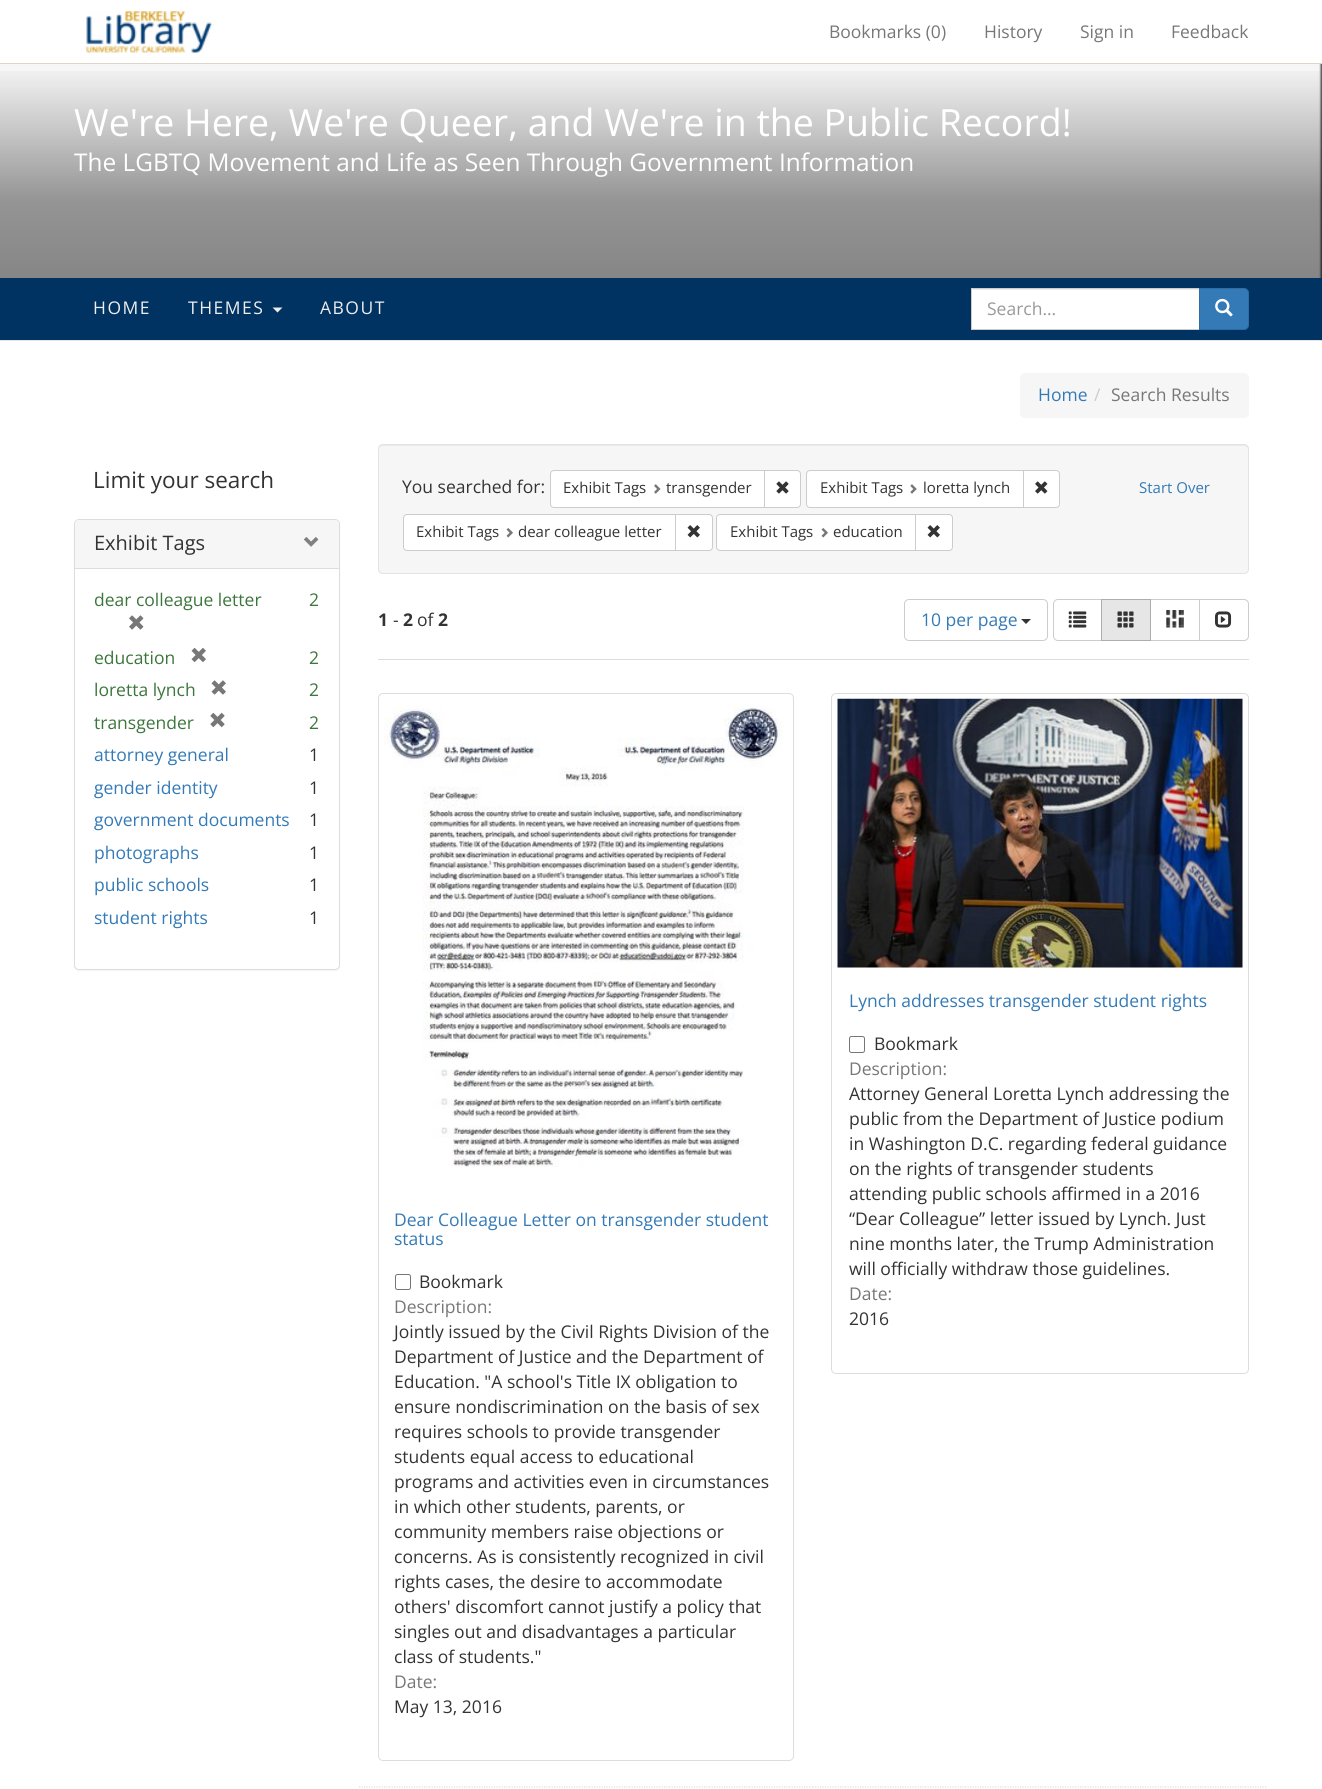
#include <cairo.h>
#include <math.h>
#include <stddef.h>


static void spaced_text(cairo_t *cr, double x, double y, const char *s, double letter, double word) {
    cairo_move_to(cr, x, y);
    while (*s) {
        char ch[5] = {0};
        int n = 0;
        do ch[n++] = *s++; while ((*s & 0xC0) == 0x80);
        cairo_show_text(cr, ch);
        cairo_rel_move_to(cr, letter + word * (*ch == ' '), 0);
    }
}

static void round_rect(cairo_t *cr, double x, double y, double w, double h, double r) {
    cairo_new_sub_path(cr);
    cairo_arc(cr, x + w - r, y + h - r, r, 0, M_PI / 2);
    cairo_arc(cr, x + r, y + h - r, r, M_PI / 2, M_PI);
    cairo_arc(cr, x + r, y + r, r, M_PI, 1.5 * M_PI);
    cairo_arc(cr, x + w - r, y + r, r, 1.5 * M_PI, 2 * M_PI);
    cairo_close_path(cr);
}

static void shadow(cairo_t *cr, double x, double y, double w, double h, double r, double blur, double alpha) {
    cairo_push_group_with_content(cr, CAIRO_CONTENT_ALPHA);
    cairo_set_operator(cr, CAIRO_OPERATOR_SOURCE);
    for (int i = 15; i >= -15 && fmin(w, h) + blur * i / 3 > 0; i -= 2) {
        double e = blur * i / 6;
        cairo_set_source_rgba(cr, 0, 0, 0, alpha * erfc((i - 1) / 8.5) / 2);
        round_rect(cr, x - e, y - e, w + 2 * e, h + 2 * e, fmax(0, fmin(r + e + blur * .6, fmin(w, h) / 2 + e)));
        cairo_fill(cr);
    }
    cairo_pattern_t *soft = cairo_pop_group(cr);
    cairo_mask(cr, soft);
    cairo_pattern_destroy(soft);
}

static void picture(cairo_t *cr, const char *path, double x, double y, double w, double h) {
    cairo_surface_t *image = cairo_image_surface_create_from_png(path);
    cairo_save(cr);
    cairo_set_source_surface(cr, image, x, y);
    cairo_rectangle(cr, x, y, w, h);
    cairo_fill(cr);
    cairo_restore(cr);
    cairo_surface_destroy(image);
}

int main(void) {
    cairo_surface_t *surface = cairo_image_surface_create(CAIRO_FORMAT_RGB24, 1322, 1789);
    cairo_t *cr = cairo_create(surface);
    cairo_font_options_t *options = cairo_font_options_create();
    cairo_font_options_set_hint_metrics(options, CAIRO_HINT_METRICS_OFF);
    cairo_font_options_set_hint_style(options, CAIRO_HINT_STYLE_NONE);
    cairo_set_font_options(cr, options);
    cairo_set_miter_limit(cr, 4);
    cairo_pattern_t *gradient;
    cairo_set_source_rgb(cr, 1, 1, 1);
    cairo_paint(cr);
    cairo_set_source_rgb(cr, 0.961, 0.961, 0.961);
    cairo_rectangle(cr, 0, 64, 1322, 214);
    cairo_fill(cr);
    cairo_set_source_rgb(cr, 0.906, 0.906, 0.906);
    cairo_rectangle(cr, 0, 340, 1322, 1);
    cairo_fill(cr);
    cairo_set_source_rgb(cr, 0, 0, 0);
    shadow(cr, 1321, 63, 1, 276, 0, 1, 1);
    cairo_set_source_rgb(cr, 1, 1, 1);
    cairo_rectangle(cr, 1319, 61, 3, 2);
    cairo_fill(cr);
    cairo_set_source_rgb(cr, 0.867, 0.835, 0.78);
    cairo_rectangle(cr, 0, 63, 1322, 1);
    cairo_fill(cr);
    picture(cr, "img1.png", 86, 11, 126, 42);
    cairo_select_font_face(cr, "Open Sans", CAIRO_FONT_SLANT_NORMAL, CAIRO_FONT_WEIGHT_NORMAL);
    cairo_set_font_size(cr, 17.5);
    cairo_set_source_rgb(cr, 0.467, 0.467, 0.467);
    cairo_move_to(cr, 829, 38);
    cairo_show_text(cr, "Bookmarks (0)");
    cairo_move_to(cr, 984, 38);
    cairo_show_text(cr, "History");
    cairo_move_to(cr, 1080, 38);
    cairo_show_text(cr, "Sign in");
    cairo_move_to(cr, 1171, 38);
    cairo_show_text(cr, "Feedback");
    gradient = cairo_pattern_create_linear(661, 64, 661, 340);
    cairo_pattern_add_color_stop_rgba(gradient, 0, 0, 0, 0, 0);
    cairo_pattern_add_color_stop_rgba(gradient, 0.5, 0, 0, 0, 0.4);
    cairo_pattern_add_color_stop_rgba(gradient, 1, 0, 0, 0, 0.5);
    cairo_set_source(cr, gradient);
    cairo_pattern_destroy(gradient);
    cairo_rectangle(cr, 0, 71, 1322, 207);
    cairo_fill(cr);
    cairo_set_font_size(cr, 37.5);
    cairo_set_source_rgb(cr, 1, 1, 1);
    cairo_move_to(cr, 74, 136);
    cairo_show_text(cr, "We're Here, We're Queer, and We're in the Public Record!");
    cairo_set_font_size(cr, 24.4);
    cairo_move_to(cr, 74, 171);
    cairo_show_text(cr, "The LGBTQ Movement and Life as Seen Through Government Information");
    cairo_set_source_rgb(cr, 0, 0.196, 0.384);
    cairo_rectangle(cr, 0, 278, 1322, 62);
    cairo_fill(cr);
    cairo_set_font_size(cr, 17.5);
    cairo_set_source_rgb(cr, 0.933, 0.933, 0.933);
    spaced_text(cr, 93, 314, "HOME", 1.5, 0);
    spaced_text(cr, 188, 314, "THEMES", 1.5, 0);
    cairo_new_path(cr);
    cairo_move_to(cr, 272.5, 307.5);
    cairo_line_to(cr, 282.5, 307.5);
    cairo_line_to(cr, 277.5, 312.5);
    cairo_close_path(cr);
    cairo_fill(cr);
    spaced_text(cr, 320, 314, "ABOUT", 1.5, 0);
    cairo_set_source_rgb(cr, 1, 1, 1);
    cairo_rectangle(cr, 972, 289, 227, 40);
    cairo_fill(cr);
    cairo_set_source_rgb(cr, 0.925, 0.925, 0.925);
    cairo_rectangle(cr, 973, 289, 226, 1);
    cairo_fill(cr);
    cairo_rectangle(cr, 971.5, 288.5, 228, 41);
    cairo_set_source_rgb(cr, 0.8, 0.8, 0.8);
    cairo_set_line_width(cr, 1);
    cairo_stroke(cr);
    cairo_set_source_rgb(cr, 0.6, 0.6, 0.6);
    cairo_move_to(cr, 987, 315);
    cairo_show_text(cr, "Search...");
    cairo_set_source_rgb(cr, 0.2, 0.478, 0.718);
    cairo_new_path(cr);
    cairo_move_to(cr, 1199.5, 288.5);
    cairo_line_to(cr, 1244, 288.5);
    cairo_curve_to(cr, 1246.5, 288.5, 1248.5, 290.5, 1248.5, 293);
    cairo_line_to(cr, 1248.5, 325);
    cairo_curve_to(cr, 1248.5, 327.5, 1246.5, 329.5, 1244, 329.5);
    cairo_line_to(cr, 1199.5, 329.5);
    cairo_close_path(cr);
    cairo_fill_preserve(cr);
    cairo_set_source_rgb(cr, 0.18, 0.427, 0.643);
    cairo_stroke(cr);
    picture(cr, "img2.png", 1215, 298, 18, 19);
    cairo_set_source_rgb(cr, 0.961, 0.961, 0.961);
    round_rect(cr, 1020, 373, 229, 45, 5);
    cairo_fill(cr);
    cairo_set_source_rgb(cr, 0.2, 0.478, 0.718);
    cairo_move_to(cr, 1038, 401);
    cairo_show_text(cr, "Home");
    cairo_set_source_rgb(cr, 0.8, 0.8, 0.8);
    cairo_move_to(cr, 1094, 401);
    cairo_show_text(cr, "/");
    cairo_set_source_rgb(cr, 0.467, 0.467, 0.467);
    cairo_move_to(cr, 1111, 401);
    cairo_show_text(cr, "Search Results");
    cairo_set_font_size(cr, 22.5);
    cairo_set_source_rgb(cr, 0.2, 0.2, 0.2);
    cairo_move_to(cr, 93, 488);
    cairo_show_text(cr, "Limit your search");
    cairo_set_source_rgb(cr, 0, 0, 0);
    shadow(cr, 74, 520, 266, 451, 5, 0.5, 0.05);
    cairo_set_source_rgb(cr, 1, 1, 1);
    round_rect(cr, 74.5, 519.5, 265, 450, 4.5);
    cairo_fill_preserve(cr);
    cairo_set_source_rgb(cr, 0.867, 0.867, 0.867);
    cairo_stroke(cr);
    cairo_set_source_rgb(cr, 0.961, 0.961, 0.961);
    cairo_new_path(cr);
    cairo_move_to(cr, 79, 520);
    cairo_line_to(cr, 335, 520);
    cairo_curve_to(cr, 337, 520, 339, 522, 339, 524);
    cairo_line_to(cr, 339, 568);
    cairo_line_to(cr, 75, 568);
    cairo_line_to(cr, 75, 524);
    cairo_curve_to(cr, 75, 522, 77, 520, 79, 520);
    cairo_close_path(cr);
    cairo_fill(cr);
    cairo_set_font_size(cr, 20);
    cairo_set_source_rgb(cr, 0.2, 0.2, 0.2);
    cairo_move_to(cr, 94, 550);
    cairo_show_text(cr, "Exhibit Tags");
    picture(cr, "img3.png", 303, 537, 16, 10);
    cairo_set_source_rgb(cr, 0.867, 0.867, 0.867);
    cairo_rectangle(cr, 75, 568, 264, 1);
    cairo_fill(cr);
    cairo_set_font_size(cr, 17.5);
    cairo_set_source_rgb(cr, 0.235, 0.463, 0.239);
    cairo_move_to(cr, 94, 606);
    cairo_show_text(cr, "dear colleague letter");
    picture(cr, "img4.png", 129, 615, 15, 15);
    cairo_move_to(cr, 309, 606);
    cairo_show_text(cr, "2");
    cairo_move_to(cr, 94, 664);
    cairo_show_text(cr, "education");
    picture(cr, "img5.png", 191, 647, 15, 16);
    cairo_move_to(cr, 309, 664);
    cairo_show_text(cr, "2");
    cairo_move_to(cr, 94, 696);
    cairo_show_text(cr, "loretta lynch");
    picture(cr, "img6.png", 211, 680, 15, 15);
    cairo_move_to(cr, 309, 696);
    cairo_show_text(cr, "2");
    cairo_move_to(cr, 94, 729);
    cairo_show_text(cr, "transgender");
    picture(cr, "img7.png", 210, 712, 15, 16);
    cairo_move_to(cr, 309, 729);
    cairo_show_text(cr, "2");
    cairo_set_source_rgb(cr, 0.2, 0.478, 0.718);
    cairo_move_to(cr, 94, 761);
    cairo_show_text(cr, "attorney general");
    cairo_set_source_rgb(cr, 0.2, 0.2, 0.2);
    cairo_move_to(cr, 309, 761);
    cairo_show_text(cr, "1");
    cairo_set_source_rgb(cr, 0.2, 0.478, 0.718);
    cairo_move_to(cr, 94, 794);
    cairo_show_text(cr, "gender identity");
    cairo_set_source_rgb(cr, 0.2, 0.2, 0.2);
    cairo_move_to(cr, 309, 794);
    cairo_show_text(cr, "1");
    cairo_set_source_rgb(cr, 0.2, 0.478, 0.718);
    cairo_move_to(cr, 94, 826);
    cairo_show_text(cr, "government documents");
    cairo_set_source_rgb(cr, 0.2, 0.2, 0.2);
    cairo_move_to(cr, 309, 826);
    cairo_show_text(cr, "1");
    cairo_set_source_rgb(cr, 0.2, 0.478, 0.718);
    cairo_move_to(cr, 94, 859);
    cairo_show_text(cr, "photographs");
    cairo_set_source_rgb(cr, 0.2, 0.2, 0.2);
    cairo_move_to(cr, 309, 859);
    cairo_show_text(cr, "1");
    cairo_set_source_rgb(cr, 0.2, 0.478, 0.718);
    cairo_move_to(cr, 94, 891);
    cairo_show_text(cr, "public schools");
    cairo_set_source_rgb(cr, 0.2, 0.2, 0.2);
    cairo_move_to(cr, 309, 891);
    cairo_show_text(cr, "1");
    cairo_set_source_rgb(cr, 0.2, 0.478, 0.718);
    cairo_move_to(cr, 94, 924);
    cairo_show_text(cr, "student rights");
    cairo_set_source_rgb(cr, 0.2, 0.2, 0.2);
    cairo_move_to(cr, 309, 924);
    cairo_show_text(cr, "1");
    cairo_set_source_rgb(cr, 0.961, 0.961, 0.961);
    round_rect(cr, 378, 444, 871, 130, 5);
    cairo_fill(cr);
    cairo_set_source_rgb(cr, 0.914, 0.914, 0.914);
    cairo_new_path(cr);
    cairo_move_to(cr, 382, 446);
    cairo_line_to(cr, 1244, 446);
    cairo_curve_to(cr, 1246, 446, 1248, 448, 1248, 450);
    cairo_curve_to(cr, 1248, 447, 1247, 445, 1244, 445);
    cairo_line_to(cr, 383, 445);
    cairo_curve_to(cr, 380, 445, 379, 447, 379, 450);
    cairo_curve_to(cr, 379, 448, 380, 446, 382, 446);
    cairo_close_path(cr);
    cairo_fill(cr);
    round_rect(cr, 378.5, 444.5, 870, 129, 4.5);
    cairo_set_source_rgb(cr, 0.89, 0.89, 0.89);
    cairo_stroke(cr);
    cairo_set_source_rgb(cr, 0.2, 0.2, 0.2);
    cairo_move_to(cr, 402, 493);
    cairo_show_text(cr, "You searched for:");
    cairo_set_source_rgb(cr, 1, 1, 1);
    cairo_new_path(cr);
    cairo_move_to(cr, 554, 470.5);
    cairo_line_to(cr, 764.5, 470.5);
    cairo_line_to(cr, 764.5, 507.5);
    cairo_line_to(cr, 554, 507.5);
    cairo_curve_to(cr, 552, 507.5, 550.5, 506, 550.5, 504);
    cairo_line_to(cr, 550.5, 474);
    cairo_curve_to(cr, 550.5, 472, 552, 470.5, 554, 470.5);
    cairo_close_path(cr);
    cairo_fill_preserve(cr);
    cairo_set_source_rgb(cr, 0.8, 0.8, 0.8);
    cairo_stroke(cr);
    cairo_set_font_size(cr, 15);
    cairo_set_source_rgb(cr, 0.2, 0.2, 0.2);
    cairo_move_to(cr, 563, 493);
    cairo_show_text(cr, "Exhibit Tags");
    picture(cr, "img8.png", 654, 484, 7, 10);
    cairo_move_to(cr, 666, 493);
    cairo_show_text(cr, "transgender");
    cairo_set_source_rgb(cr, 1, 1, 1);
    cairo_new_path(cr);
    cairo_move_to(cr, 764.5, 470.5);
    cairo_line_to(cr, 797, 470.5);
    cairo_curve_to(cr, 799, 470.5, 800.5, 472, 800.5, 474);
    cairo_line_to(cr, 800.5, 504);
    cairo_curve_to(cr, 800.5, 506, 799, 507.5, 797, 507.5);
    cairo_line_to(cr, 764.5, 507.5);
    cairo_close_path(cr);
    cairo_fill_preserve(cr);
    cairo_set_source_rgb(cr, 0.8, 0.8, 0.8);
    cairo_stroke(cr);
    picture(cr, "img9.png", 776, 481, 13, 13);
    cairo_set_source_rgb(cr, 1, 1, 1);
    cairo_new_path(cr);
    cairo_move_to(cr, 810, 470.5);
    cairo_line_to(cr, 1023.5, 470.5);
    cairo_line_to(cr, 1023.5, 507.5);
    cairo_line_to(cr, 810, 507.5);
    cairo_curve_to(cr, 808, 507.5, 806.5, 506, 806.5, 504);
    cairo_line_to(cr, 806.5, 474);
    cairo_curve_to(cr, 806.5, 472, 808, 470.5, 810, 470.5);
    cairo_close_path(cr);
    cairo_fill_preserve(cr);
    cairo_set_source_rgb(cr, 0.8, 0.8, 0.8);
    cairo_stroke(cr);
    cairo_set_source_rgb(cr, 0.2, 0.2, 0.2);
    cairo_move_to(cr, 820, 493);
    cairo_show_text(cr, "Exhibit Tags");
    picture(cr, "img10.png", 910, 484, 7, 10);
    cairo_move_to(cr, 923, 493);
    cairo_show_text(cr, "loretta lynch");
    cairo_set_source_rgb(cr, 1, 1, 1);
    cairo_new_path(cr);
    cairo_move_to(cr, 1023.5, 470.5);
    cairo_line_to(cr, 1056, 470.5);
    cairo_curve_to(cr, 1058, 470.5, 1059.5, 472, 1059.5, 474);
    cairo_line_to(cr, 1059.5, 504);
    cairo_curve_to(cr, 1059.5, 506, 1058, 507.5, 1056, 507.5);
    cairo_line_to(cr, 1023.5, 507.5);
    cairo_close_path(cr);
    cairo_fill_preserve(cr);
    cairo_set_source_rgb(cr, 0.8, 0.8, 0.8);
    cairo_stroke(cr);
    picture(cr, "img11.png", 1035, 481, 13, 13);
    cairo_set_source_rgb(cr, 0.2, 0.478, 0.718);
    cairo_move_to(cr, 1139, 493);
    cairo_show_text(cr, "Start Over");
    cairo_set_source_rgb(cr, 1, 1, 1);
    cairo_new_path(cr);
    cairo_move_to(cr, 407, 514.5);
    cairo_line_to(cr, 675.5, 514.5);
    cairo_line_to(cr, 675.5, 550.5);
    cairo_line_to(cr, 407, 550.5);
    cairo_curve_to(cr, 405, 550.5, 403.5, 549, 403.5, 547);
    cairo_line_to(cr, 403.5, 518);
    cairo_curve_to(cr, 403.5, 516, 405, 514.5, 407, 514.5);
    cairo_close_path(cr);
    cairo_fill_preserve(cr);
    cairo_set_source_rgb(cr, 0.8, 0.8, 0.8);
    cairo_stroke(cr);
    cairo_set_source_rgb(cr, 0.2, 0.2, 0.2);
    cairo_move_to(cr, 416, 537);
    cairo_show_text(cr, "Exhibit Tags");
    picture(cr, "img12.png", 506, 528, 7, 10);
    cairo_move_to(cr, 518, 537);
    cairo_show_text(cr, "dear colleague letter");
    cairo_set_source_rgb(cr, 1, 1, 1);
    cairo_new_path(cr);
    cairo_move_to(cr, 675.5, 514.5);
    cairo_line_to(cr, 709, 514.5);
    cairo_curve_to(cr, 711, 514.5, 712.5, 516, 712.5, 518);
    cairo_line_to(cr, 712.5, 547);
    cairo_curve_to(cr, 712.5, 549, 711, 550.5, 709, 550.5);
    cairo_line_to(cr, 675.5, 550.5);
    cairo_close_path(cr);
    cairo_fill_preserve(cr);
    cairo_set_source_rgb(cr, 0.8, 0.8, 0.8);
    cairo_stroke(cr);
    picture(cr, "img13.png", 687, 525, 13, 13);
    cairo_set_source_rgb(cr, 1, 1, 1);
    cairo_new_path(cr);
    cairo_move_to(cr, 720, 514.5);
    cairo_line_to(cr, 915.5, 514.5);
    cairo_line_to(cr, 915.5, 550.5);
    cairo_line_to(cr, 720, 550.5);
    cairo_curve_to(cr, 718, 550.5, 716.5, 549, 716.5, 547);
    cairo_line_to(cr, 716.5, 518);
    cairo_curve_to(cr, 716.5, 516, 718, 514.5, 720, 514.5);
    cairo_close_path(cr);
    cairo_fill_preserve(cr);
    cairo_set_source_rgb(cr, 0.8, 0.8, 0.8);
    cairo_stroke(cr);
    cairo_set_source_rgb(cr, 0.2, 0.2, 0.2);
    cairo_move_to(cr, 730, 537);
    cairo_show_text(cr, "Exhibit Tags");
    picture(cr, "img12.png", 821, 528, 7, 10);
    cairo_move_to(cr, 833, 537);
    cairo_show_text(cr, "education");
    cairo_set_source_rgb(cr, 1, 1, 1);
    cairo_new_path(cr);
    cairo_move_to(cr, 915.5, 514.5);
    cairo_line_to(cr, 949, 514.5);
    cairo_curve_to(cr, 951, 514.5, 952.5, 516, 952.5, 518);
    cairo_line_to(cr, 952.5, 547);
    cairo_curve_to(cr, 952.5, 549, 951, 550.5, 949, 550.5);
    cairo_line_to(cr, 915.5, 550.5);
    cairo_close_path(cr);
    cairo_fill_preserve(cr);
    cairo_set_source_rgb(cr, 0.8, 0.8, 0.8);
    cairo_stroke(cr);
    picture(cr, "img13.png", 927, 525, 13, 13);
    cairo_set_source_rgb(cr, 0.867, 0.867, 0.867);
    cairo_rectangle(cr, 378, 659, 871, 1);
    cairo_fill(cr);
    cairo_select_font_face(cr, "Open Sans", CAIRO_FONT_SLANT_NORMAL, CAIRO_FONT_WEIGHT_BOLD);
    cairo_set_font_size(cr, 17.5);
    cairo_set_source_rgb(cr, 0.2, 0.2, 0.2);
    cairo_move_to(cr, 378, 626);
    cairo_show_text(cr, "1");
    cairo_select_font_face(cr, "Open Sans", CAIRO_FONT_SLANT_NORMAL, CAIRO_FONT_WEIGHT_NORMAL);
    cairo_move_to(cr, 393, 626);
    cairo_show_text(cr, "-");
    cairo_select_font_face(cr, "Open Sans", CAIRO_FONT_SLANT_NORMAL, CAIRO_FONT_WEIGHT_BOLD);
    cairo_move_to(cr, 403, 626);
    cairo_show_text(cr, "2");
    cairo_select_font_face(cr, "Open Sans", CAIRO_FONT_SLANT_NORMAL, CAIRO_FONT_WEIGHT_NORMAL);
    cairo_move_to(cr, 417, 626);
    cairo_show_text(cr, "of");
    cairo_select_font_face(cr, "Open Sans", CAIRO_FONT_SLANT_NORMAL, CAIRO_FONT_WEIGHT_BOLD);
    cairo_move_to(cr, 438, 626);
    cairo_show_text(cr, "2");
    round_rect(cr, 904.5, 599.5, 143, 41, 4.5);
    cairo_set_source_rgb(cr, 0.8, 0.8, 0.8);
    cairo_stroke(cr);
    cairo_select_font_face(cr, "Open Sans", CAIRO_FONT_SLANT_NORMAL, CAIRO_FONT_WEIGHT_NORMAL);
    cairo_set_source_rgb(cr, 0.2, 0.478, 0.718);
    cairo_move_to(cr, 921, 626);
    cairo_show_text(cr, "10 per page");
    cairo_set_source_rgb(cr, 0.2, 0.2, 0.2);
    cairo_new_path(cr);
    cairo_move_to(cr, 1021, 619);
    cairo_line_to(cr, 1031, 619);
    cairo_line_to(cr, 1026, 624);
    cairo_close_path(cr);
    cairo_fill(cr);
    cairo_new_path(cr);
    cairo_move_to(cr, 1058, 599.5);
    cairo_line_to(cr, 1102.5, 599.5);
    cairo_line_to(cr, 1102.5, 640.5);
    cairo_line_to(cr, 1058, 640.5);
    cairo_curve_to(cr, 1055.5, 640.5, 1053.5, 638.5, 1053.5, 636);
    cairo_line_to(cr, 1053.5, 604);
    cairo_curve_to(cr, 1053.5, 601.5, 1055.5, 599.5, 1058, 599.5);
    cairo_close_path(cr);
    cairo_set_source_rgb(cr, 0.8, 0.8, 0.8);
    cairo_stroke(cr);
    picture(cr, "img14.png", 1068, 611, 19, 17);
    cairo_rectangle(cr, 1150.5, 599.5, 49, 41);
    cairo_stroke(cr);
    cairo_set_source_rgb(cr, 0.902, 0.902, 0.902);
    cairo_rectangle(cr, 1101.5, 599.5, 49, 41);
    cairo_fill_preserve(cr);
    cairo_set_source_rgb(cr, 0.678, 0.678, 0.678);
    cairo_stroke(cr);
    picture(cr, "img15.png", 1117, 611, 17, 17);
    picture(cr, "img16.png", 1166, 610, 18, 18);
    cairo_set_source_rgb(cr, 1, 1, 1);
    cairo_new_path(cr);
    cairo_move_to(cr, 1199.5, 599.5);
    cairo_line_to(cr, 1244, 599.5);
    cairo_curve_to(cr, 1246.5, 599.5, 1248.5, 601.5, 1248.5, 604);
    cairo_line_to(cr, 1248.5, 636);
    cairo_curve_to(cr, 1248.5, 638.5, 1246.5, 640.5, 1244, 640.5);
    cairo_line_to(cr, 1199.5, 640.5);
    cairo_close_path(cr);
    cairo_fill_preserve(cr);
    cairo_set_source_rgb(cr, 0.8, 0.8, 0.8);
    cairo_stroke(cr);
    picture(cr, "img17.png", 1215, 611, 17, 17);
    cairo_new_path(cr);
    cairo_move_to(cr, 359, 1787);
    cairo_line_to(cr, 812.5, 1787);
    cairo_set_source_rgb(cr, 0.867, 0.867, 0.867);
    cairo_set_line_width(cr, 1.2);
    cairo_set_dash(cr, (double[]){1.25, 1.25}, 2, 0);
    cairo_stroke(cr);
    cairo_new_path(cr);
    cairo_move_to(cr, 812.5, 1787);
    cairo_line_to(cr, 1267.5, 1787);
    cairo_stroke(cr);
    round_rect(cr, 831.5, 693.5, 417, 680, 4.5);
    cairo_set_line_width(cr, 1);
    cairo_set_dash(cr, NULL, 0, 0);
    cairo_stroke(cr);
    picture(cr, "img18.png", 837, 698, 406, 270);
    cairo_set_source_rgb(cr, 0.2, 0.478, 0.718);
    cairo_move_to(cr, 849, 1007);
    cairo_show_text(cr, "Lynch addresses transgender student rights");
    round_rect(cr, 849.5, 1036.5, 15, 16, 2);
    cairo_set_source_rgb(cr, 0.463, 0.463, 0.463);
    cairo_stroke(cr);
    cairo_set_source_rgb(cr, 0.2, 0.2, 0.2);
    cairo_move_to(cr, 874, 1050);
    cairo_show_text(cr, "Bookmark");
    cairo_set_source_rgb(cr, 0.467, 0.467, 0.467);
    cairo_move_to(cr, 849, 1075);
    cairo_show_text(cr, "Description:");
    cairo_set_source_rgb(cr, 0.2, 0.2, 0.2);
    cairo_move_to(cr, 849, 1100);
    cairo_show_text(cr, "Attorney General Loretta Lynch addressing the");
    cairo_move_to(cr, 849, 1125);
    cairo_show_text(cr, "public from the Department of Justice podium");
    cairo_move_to(cr, 849, 1150);
    cairo_show_text(cr, "in Washington D.C. regarding federal guidance");
    cairo_move_to(cr, 849, 1175);
    cairo_show_text(cr, "on the rights of transgender students");
    cairo_move_to(cr, 849, 1200);
    cairo_show_text(cr, "attending public schools affirmed in a 2016");
    cairo_move_to(cr, 849, 1225);
    cairo_show_text(cr, "“Dear Colleague” letter issued by Lynch. Just");
    cairo_move_to(cr, 849, 1250);
    cairo_show_text(cr, "nine months later, the Trump Administration");
    cairo_move_to(cr, 849, 1275);
    cairo_show_text(cr, "will officially withdraw those guidelines.");
    cairo_set_source_rgb(cr, 0.467, 0.467, 0.467);
    cairo_move_to(cr, 849, 1300);
    cairo_show_text(cr, "Date:");
    cairo_set_source_rgb(cr, 0.2, 0.2, 0.2);
    cairo_move_to(cr, 849, 1325);
    cairo_show_text(cr, "2016");
    round_rect(cr, 378.5, 693.5, 415, 1067, 4.5);
    cairo_set_source_rgb(cr, 0.867, 0.867, 0.867);
    cairo_stroke(cr);
    picture(cr, "img19.png", 384, 704, 399, 463);
    cairo_set_source_rgb(cr, 0.2, 0.478, 0.718);
    cairo_move_to(cr, 394, 1226);
    cairo_show_text(cr, "Dear Colleague Letter on transgender student");
    cairo_move_to(cr, 394, 1245);
    cairo_show_text(cr, "status");
    round_rect(cr, 395.5, 1274.5, 15, 15, 2);
    cairo_set_source_rgb(cr, 0.463, 0.463, 0.463);
    cairo_stroke(cr);
    cairo_set_source_rgb(cr, 0.2, 0.2, 0.2);
    cairo_move_to(cr, 419, 1288);
    cairo_show_text(cr, "Bookmark");
    cairo_set_source_rgb(cr, 0.467, 0.467, 0.467);
    cairo_move_to(cr, 394, 1313);
    cairo_show_text(cr, "Description:");
    cairo_set_source_rgb(cr, 0.2, 0.2, 0.2);
    cairo_move_to(cr, 394, 1338);
    cairo_show_text(cr, "Jointly issued by the Civil Rights Division of the");
    cairo_move_to(cr, 394, 1363);
    cairo_show_text(cr, "Department of Justice and the Department of");
    cairo_move_to(cr, 394, 1388);
    cairo_show_text(cr, "Education. \"A school's Title IX obligation to");
    cairo_move_to(cr, 394, 1413);
    cairo_show_text(cr, "ensure nondiscrimination on the basis of sex");
    cairo_move_to(cr, 394, 1438);
    cairo_show_text(cr, "requires schools to provide transgender");
    cairo_move_to(cr, 394, 1463);
    cairo_show_text(cr, "students equal access to educational");
    cairo_move_to(cr, 394, 1488);
    cairo_show_text(cr, "programs and activities even in circumstances");
    cairo_move_to(cr, 394, 1513);
    cairo_show_text(cr, "in which other students, parents, or");
    cairo_move_to(cr, 394, 1538);
    cairo_show_text(cr, "community members raise objections or");
    cairo_move_to(cr, 394, 1563);
    cairo_show_text(cr, "concerns. As is consistently recognized in civil");
    cairo_move_to(cr, 394, 1588);
    cairo_show_text(cr, "rights cases, the desire to accommodate");
    cairo_move_to(cr, 394, 1613);
    cairo_show_text(cr, "others' discomfort cannot justify a policy that");
    cairo_move_to(cr, 394, 1638);
    cairo_show_text(cr, "singles out and disadvantages a particular");
    cairo_move_to(cr, 394, 1663);
    cairo_show_text(cr, "class of students.\"");
    cairo_set_source_rgb(cr, 0.467, 0.467, 0.467);
    cairo_move_to(cr, 394, 1688);
    cairo_show_text(cr, "Date:");
    cairo_set_source_rgb(cr, 0.2, 0.2, 0.2);
    cairo_move_to(cr, 394, 1713);
    cairo_show_text(cr, "May 13, 2016");
    cairo_surface_write_to_png(surface, "page.png");
    cairo_font_options_destroy(options);
    cairo_destroy(cr);
    cairo_surface_destroy(surface);
    return 0;
}
